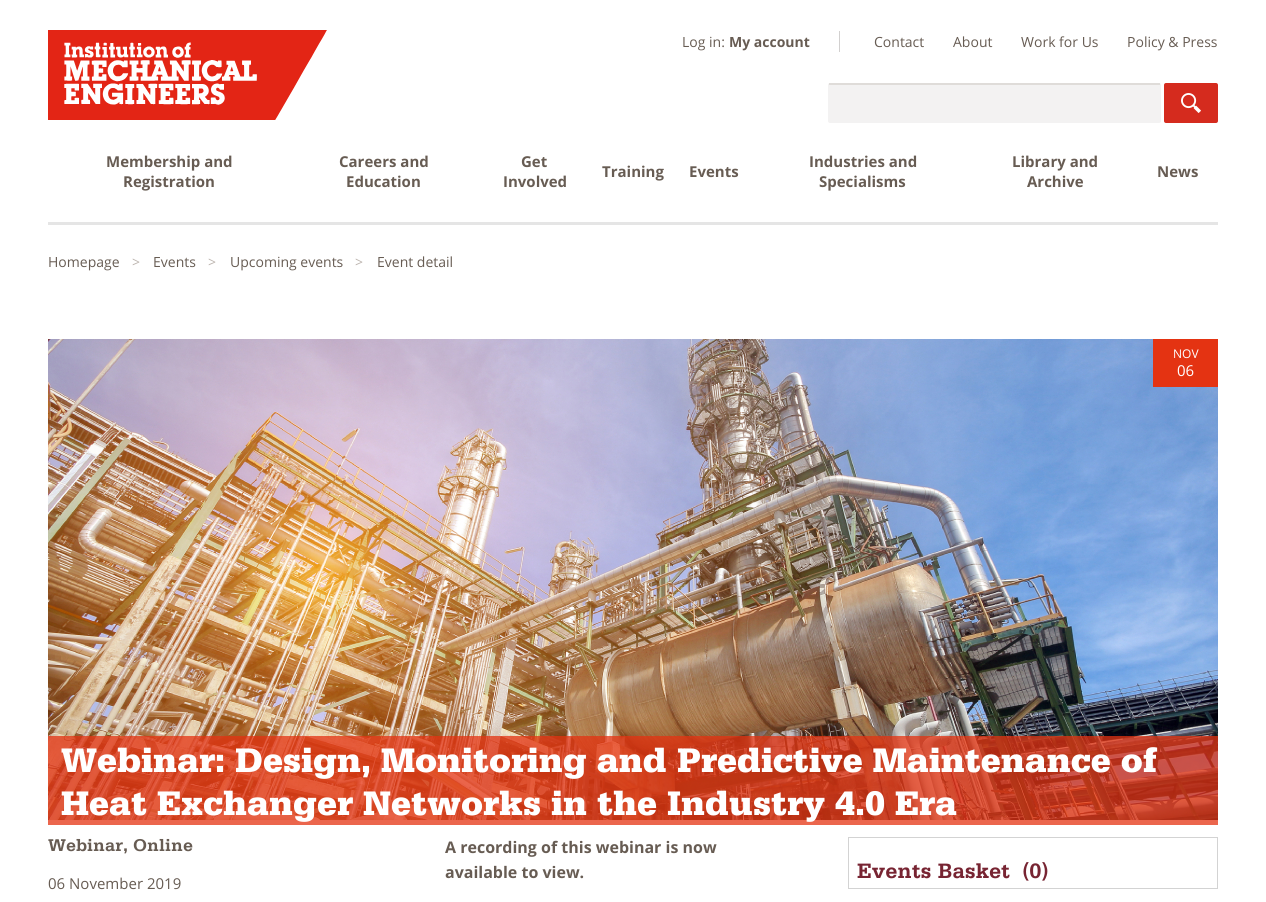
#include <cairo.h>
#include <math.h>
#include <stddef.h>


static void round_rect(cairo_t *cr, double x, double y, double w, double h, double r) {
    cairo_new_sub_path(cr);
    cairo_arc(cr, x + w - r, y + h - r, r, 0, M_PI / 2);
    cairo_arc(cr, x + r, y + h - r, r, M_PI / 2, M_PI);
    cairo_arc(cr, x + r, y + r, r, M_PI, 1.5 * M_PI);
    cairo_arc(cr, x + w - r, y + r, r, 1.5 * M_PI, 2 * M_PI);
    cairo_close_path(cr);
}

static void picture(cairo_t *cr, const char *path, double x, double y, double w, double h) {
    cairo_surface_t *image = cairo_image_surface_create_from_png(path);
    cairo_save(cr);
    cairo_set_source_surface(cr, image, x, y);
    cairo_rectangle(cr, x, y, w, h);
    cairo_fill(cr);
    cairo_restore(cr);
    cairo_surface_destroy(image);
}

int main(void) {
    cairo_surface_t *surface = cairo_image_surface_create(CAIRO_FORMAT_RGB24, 1266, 902);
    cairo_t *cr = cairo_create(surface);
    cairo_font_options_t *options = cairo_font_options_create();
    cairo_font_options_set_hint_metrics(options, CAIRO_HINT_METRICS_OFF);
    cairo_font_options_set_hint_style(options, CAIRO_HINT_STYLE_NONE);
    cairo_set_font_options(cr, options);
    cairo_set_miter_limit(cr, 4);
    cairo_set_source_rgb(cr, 1, 1, 1);
    cairo_paint(cr);
    cairo_set_source_rgb(cr, 0.898, 0.898, 0.898);
    cairo_rectangle(cr, 48, 222, 1170, 3);
    cairo_fill(cr);
    picture(cr, "img1.png", 48, 30, 279, 90);
    cairo_set_source_rgb(cr, 0.824, 0.816, 0.812);
    cairo_rectangle(cr, 839, 31, 1, 21);
    cairo_fill(cr);
    cairo_select_font_face(cr, "Open Sans", CAIRO_FONT_SLANT_NORMAL, CAIRO_FONT_WEIGHT_NORMAL);
    cairo_set_font_size(cr, 14);
    cairo_set_source_rgb(cr, 0.404, 0.361, 0.325);
    cairo_move_to(cr, 682, 47);
    cairo_show_text(cr, "Log in:");
    cairo_select_font_face(cr, "Open Sans", CAIRO_FONT_SLANT_NORMAL, CAIRO_FONT_WEIGHT_BOLD);
    cairo_move_to(cr, 729, 47);
    cairo_show_text(cr, "My account");
    cairo_select_font_face(cr, "Open Sans", CAIRO_FONT_SLANT_NORMAL, CAIRO_FONT_WEIGHT_NORMAL);
    cairo_move_to(cr, 874, 47);
    cairo_show_text(cr, "Contact");
    cairo_move_to(cr, 953, 47);
    cairo_show_text(cr, "About");
    cairo_move_to(cr, 1021, 47);
    cairo_show_text(cr, "Work for Us");
    cairo_move_to(cr, 1127, 47);
    cairo_show_text(cr, "Policy & Press");
    cairo_select_font_face(cr, "Open Sans", CAIRO_FONT_SLANT_NORMAL, CAIRO_FONT_WEIGHT_BOLD);
    cairo_set_font_size(cr, 15);
    cairo_move_to(cr, 106, 167);
    cairo_show_text(cr, "Membership and");
    cairo_move_to(cr, 123, 187);
    cairo_show_text(cr, "Registration");
    cairo_move_to(cr, 339, 167);
    cairo_show_text(cr, "Careers and");
    cairo_move_to(cr, 346, 187);
    cairo_show_text(cr, "Education");
    cairo_move_to(cr, 521, 167);
    cairo_show_text(cr, "Get");
    cairo_move_to(cr, 503, 187);
    cairo_show_text(cr, "Involved");
    cairo_move_to(cr, 602, 177);
    cairo_show_text(cr, "Training");
    cairo_move_to(cr, 689, 177);
    cairo_show_text(cr, "Events");
    cairo_move_to(cr, 809, 167);
    cairo_show_text(cr, "Industries and");
    cairo_move_to(cr, 819, 187);
    cairo_show_text(cr, "Specialisms");
    cairo_move_to(cr, 1012, 167);
    cairo_show_text(cr, "Library and");
    cairo_move_to(cr, 1027, 187);
    cairo_show_text(cr, "Archive");
    cairo_move_to(cr, 1157, 177);
    cairo_show_text(cr, "News");
    cairo_set_source_rgb(cr, 0.953, 0.949, 0.949);
    round_rect(cr, 828, 83, 333, 40, 2);
    cairo_fill(cr);
    cairo_set_source_rgb(cr, 0.875, 0.863, 0.851);
    cairo_rectangle(cr, 829, 83, 331, 2);
    cairo_fill(cr);
    cairo_set_source_rgb(cr, 0.835, 0.169, 0.118);
    round_rect(cr, 1164, 83, 54, 40, 2);
    cairo_fill(cr);
    picture(cr, "img2.png", 1181, 93, 20, 20);
    cairo_select_font_face(cr, "Open Sans", CAIRO_FONT_SLANT_NORMAL, CAIRO_FONT_WEIGHT_NORMAL);
    cairo_set_font_size(cr, 14);
    cairo_set_source_rgb(cr, 0.404, 0.361, 0.325);
    cairo_move_to(cr, 48, 267);
    cairo_show_text(cr, "Homepage");
    cairo_set_source_rgb(cr, 0.737, 0.706, 0.682);
    cairo_move_to(cr, 132, 267);
    cairo_show_text(cr, ">");
    cairo_set_source_rgb(cr, 0.404, 0.361, 0.325);
    cairo_move_to(cr, 153, 267);
    cairo_show_text(cr, "Events");
    cairo_set_source_rgb(cr, 0.737, 0.706, 0.682);
    cairo_move_to(cr, 208, 267);
    cairo_show_text(cr, ">");
    cairo_set_source_rgb(cr, 0.404, 0.361, 0.325);
    cairo_move_to(cr, 230, 267);
    cairo_show_text(cr, "Upcoming events");
    cairo_set_source_rgb(cr, 0.737, 0.706, 0.682);
    cairo_move_to(cr, 355, 267);
    cairo_show_text(cr, ">");
    cairo_set_source_rgb(cr, 0.404, 0.361, 0.325);
    cairo_move_to(cr, 377, 267);
    cairo_show_text(cr, "Event detail");
    picture(cr, "img3.png", 48, 339, 1170, 481);
    cairo_set_source_rgb(cr, 0.894, 0.2, 0.071);
    cairo_rectangle(cr, 1153, 339, 65, 48);
    cairo_fill(cr);
    cairo_set_font_size(cr, 12);
    cairo_set_source_rgb(cr, 1, 1, 1);
    cairo_move_to(cr, 1173, 358);
    cairo_show_text(cr, "NOV");
    cairo_set_font_size(cr, 15);
    cairo_move_to(cr, 1177, 376);
    cairo_show_text(cr, "06");
    cairo_set_source_rgba(cr, 0.894, 0.2, 0.071, 0.75);
    cairo_rectangle(cr, 48, 736, 1170, 89);
    cairo_fill(cr);
    cairo_select_font_face(cr, "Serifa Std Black", CAIRO_FONT_SLANT_NORMAL, CAIRO_FONT_WEIGHT_NORMAL);
    cairo_set_font_size(cr, 36);
    cairo_set_source_rgb(cr, 1, 1, 1);
    cairo_move_to(cr, 61, 772);
    cairo_show_text(cr, "Webinar: Design, Monitoring and Predictive Maintenance of");
    cairo_move_to(cr, 61, 815);
    cairo_show_text(cr, "Heat Exchanger Networks in the Industry 4.0 Era");
    cairo_select_font_face(cr, "Serifa Std", CAIRO_FONT_SLANT_NORMAL, CAIRO_FONT_WEIGHT_BOLD);
    cairo_set_font_size(cr, 18);
    cairo_set_source_rgb(cr, 0.404, 0.361, 0.325);
    cairo_move_to(cr, 48, 851);
    cairo_show_text(cr, "Webinar, Online");
    cairo_select_font_face(cr, "Open Sans", CAIRO_FONT_SLANT_NORMAL, CAIRO_FONT_WEIGHT_NORMAL);
    cairo_set_font_size(cr, 15);
    cairo_move_to(cr, 48, 889);
    cairo_show_text(cr, "06 November 2019");
    cairo_select_font_face(cr, "Open Sans", CAIRO_FONT_SLANT_NORMAL, CAIRO_FONT_WEIGHT_BOLD);
    cairo_set_font_size(cr, 16);
    cairo_move_to(cr, 445, 853);
    cairo_show_text(cr, "A recording of this webinar is now");
    cairo_move_to(cr, 445, 878);
    cairo_show_text(cr, "available to view.");
    cairo_rectangle(cr, 848.5, 837.5, 369, 51);
    cairo_set_source_rgb(cr, 0.827, 0.827, 0.827);
    cairo_set_line_width(cr, 1);
    cairo_stroke(cr);
    cairo_select_font_face(cr, "Serifa Std", CAIRO_FONT_SLANT_NORMAL, CAIRO_FONT_WEIGHT_BOLD);
    cairo_set_font_size(cr, 22);
    cairo_set_source_rgb(cr, 0.467, 0.141, 0.196);
    cairo_move_to(cr, 857, 878);
    cairo_show_text(cr, "Events Basket");
    cairo_move_to(cr, 1022, 878);
    cairo_show_text(cr, "(0)");
    cairo_surface_write_to_png(surface, "page.png");
    cairo_font_options_destroy(options);
    cairo_destroy(cr);
    cairo_surface_destroy(surface);
    return 0;
}
